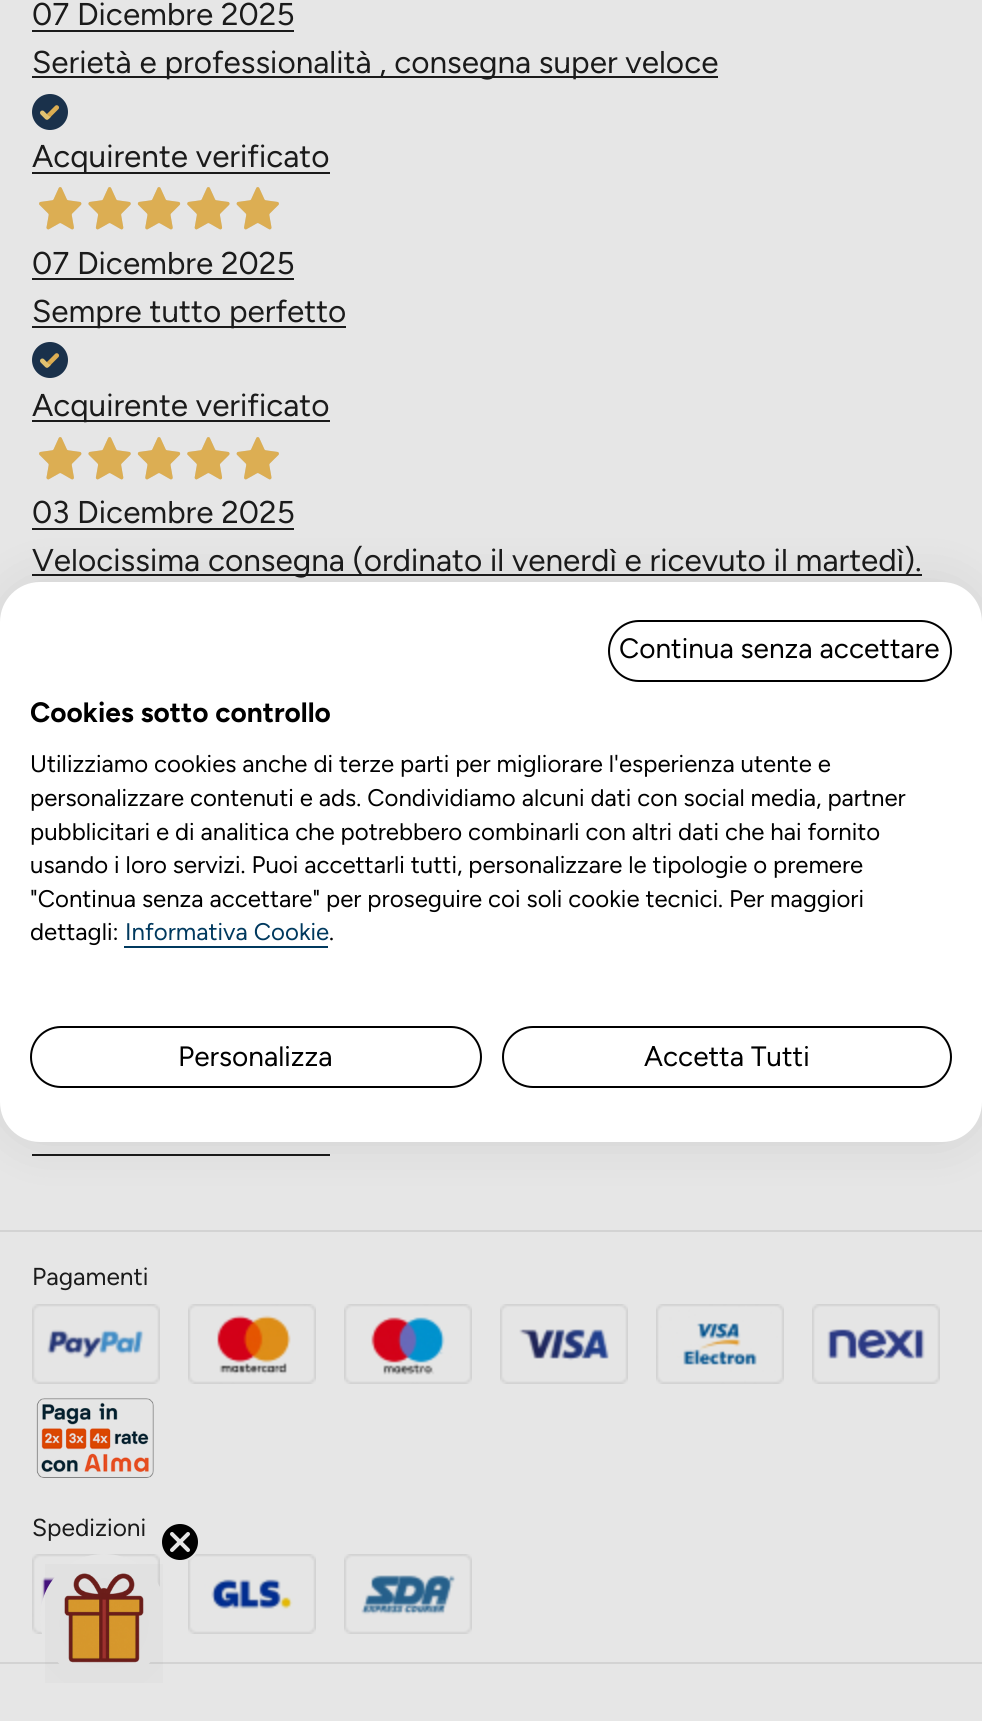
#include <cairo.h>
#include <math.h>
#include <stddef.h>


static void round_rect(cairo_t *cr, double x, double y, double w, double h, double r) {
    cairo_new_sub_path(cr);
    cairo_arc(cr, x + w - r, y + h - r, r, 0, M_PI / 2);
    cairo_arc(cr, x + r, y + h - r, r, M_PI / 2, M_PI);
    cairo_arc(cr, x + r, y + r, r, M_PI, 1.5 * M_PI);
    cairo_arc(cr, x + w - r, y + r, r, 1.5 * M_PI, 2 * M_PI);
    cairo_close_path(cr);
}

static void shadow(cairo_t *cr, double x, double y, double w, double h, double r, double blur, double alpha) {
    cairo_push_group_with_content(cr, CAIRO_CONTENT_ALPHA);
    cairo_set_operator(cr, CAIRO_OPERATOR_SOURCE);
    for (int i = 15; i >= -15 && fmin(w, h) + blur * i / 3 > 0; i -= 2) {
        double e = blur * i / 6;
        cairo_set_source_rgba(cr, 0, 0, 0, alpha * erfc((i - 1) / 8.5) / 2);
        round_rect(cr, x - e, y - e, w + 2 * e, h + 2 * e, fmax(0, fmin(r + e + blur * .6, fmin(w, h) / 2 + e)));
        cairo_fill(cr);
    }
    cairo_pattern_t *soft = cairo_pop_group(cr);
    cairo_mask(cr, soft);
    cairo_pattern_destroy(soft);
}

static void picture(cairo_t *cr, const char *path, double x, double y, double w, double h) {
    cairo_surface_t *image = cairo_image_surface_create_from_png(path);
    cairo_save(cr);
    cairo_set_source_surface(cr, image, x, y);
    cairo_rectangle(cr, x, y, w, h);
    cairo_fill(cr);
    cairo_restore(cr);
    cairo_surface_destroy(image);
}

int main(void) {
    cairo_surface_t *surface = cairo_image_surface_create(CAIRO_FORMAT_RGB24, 982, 1721);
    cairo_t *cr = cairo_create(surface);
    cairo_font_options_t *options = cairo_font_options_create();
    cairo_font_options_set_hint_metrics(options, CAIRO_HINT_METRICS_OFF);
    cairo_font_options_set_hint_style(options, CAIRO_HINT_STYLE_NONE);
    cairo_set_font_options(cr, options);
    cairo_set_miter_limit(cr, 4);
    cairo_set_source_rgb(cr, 0.902, 0.902, 0.902);
    cairo_paint(cr);
    cairo_select_font_face(cr, "Figtree Light", CAIRO_FONT_SLANT_NORMAL, CAIRO_FONT_WEIGHT_NORMAL);
    cairo_set_font_size(cr, 31.5);
    cairo_set_source_rgb(cr, 0.106, 0.106, 0.106);
    cairo_move_to(cr, 32, 25);
    cairo_show_text(cr, "07 Dicembre 2025");
    cairo_rectangle(cr, 32, 30, 262, 2);
    cairo_fill(cr);
    cairo_rectangle(cr, 32, 76, 686, 2);
    cairo_fill(cr);
    cairo_move_to(cr, 32, 73);
    cairo_show_text(cr, "Serietà e professionalità , consegna super veloce");
    picture(cr, "img1.png", 32, 94, 36, 36);
    cairo_rectangle(cr, 32, 172, 298, 2);
    cairo_fill(cr);
    cairo_move_to(cr, 32, 167);
    cairo_show_text(cr, "Acquirente verificato");
    picture(cr, "img2.png", 39, 187, 240, 43);
    cairo_move_to(cr, 32, 274);
    cairo_show_text(cr, "07 Dicembre 2025");
    cairo_rectangle(cr, 32, 278, 262, 2);
    cairo_fill(cr);
    cairo_rectangle(cr, 32, 326, 314, 2);
    cairo_fill(cr);
    cairo_move_to(cr, 32, 322);
    cairo_show_text(cr, "Sempre tutto perfetto");
    picture(cr, "img1.png", 32, 342, 36, 36);
    cairo_rectangle(cr, 32, 420, 298, 2);
    cairo_fill(cr);
    cairo_move_to(cr, 32, 416);
    cairo_show_text(cr, "Acquirente verificato");
    picture(cr, "img2.png", 39, 437, 240, 43);
    cairo_move_to(cr, 32, 523);
    cairo_show_text(cr, "03 Dicembre 2025");
    cairo_rectangle(cr, 32, 528, 262, 2);
    cairo_fill(cr);
    cairo_rectangle(cr, 32, 574, 890, 2);
    cairo_fill(cr);
    cairo_move_to(cr, 32, 571);
    cairo_show_text(cr, "Velocissima consegna (ordinato il venerdì e ricevuto il martedì).");
    cairo_rectangle(cr, 32, 1154, 298, 2);
    cairo_fill(cr);
    cairo_set_source_rgb(cr, 0.827, 0.827, 0.827);
    cairo_rectangle(cr, 0, 1230, 982, 2);
    cairo_fill(cr);
    cairo_rectangle(cr, 0, 1662, 982, 2);
    cairo_fill(cr);
    cairo_set_font_size(cr, 24.5);
    cairo_set_source_rgb(cr, 0.106, 0.106, 0.106);
    cairo_move_to(cr, 32, 1285);
    cairo_show_text(cr, "Pagamenti");
    picture(cr, "img3.png", 32, 1304, 128, 80);
    picture(cr, "img4.png", 188, 1304, 128, 80);
    picture(cr, "img5.png", 344, 1304, 128, 80);
    picture(cr, "img6.png", 500, 1304, 128, 80);
    picture(cr, "img7.png", 656, 1304, 128, 80);
    picture(cr, "img8.png", 812, 1304, 128, 80);
    picture(cr, "img9.png", 36, 1398, 118, 80);
    cairo_move_to(cr, 32, 1536);
    cairo_show_text(cr, "Spedizioni");
    picture(cr, "img10.png", 32, 1554, 128, 80);
    picture(cr, "img11.png", 188, 1554, 128, 80);
    picture(cr, "img12.png", 344, 1554, 128, 80);
    cairo_set_source_rgb(cr, 0, 0, 0);
    shadow(cr, 0, 582, 982, 560, 40, 24, 0.1);
    cairo_set_source_rgb(cr, 1, 1, 1);
    round_rect(cr, 0, 582, 982, 560, 40);
    cairo_fill(cr);
    round_rect(cr, 609, 621, 342, 60, 30);
    cairo_set_source_rgb(cr, 0, 0, 0);
    cairo_stroke(cr);
    cairo_set_font_size(cr, 28);
    cairo_move_to(cr, 619, 658);
    cairo_show_text(cr, "Continua senza accettare");
    cairo_select_font_face(cr, "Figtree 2 Light", CAIRO_FONT_SLANT_NORMAL, CAIRO_FONT_WEIGHT_NORMAL);
    cairo_move_to(cr, 30, 722);
    cairo_show_text(cr, "Cookies sotto controllo");
    cairo_select_font_face(cr, "Figtree Light", CAIRO_FONT_SLANT_NORMAL, CAIRO_FONT_WEIGHT_NORMAL);
    cairo_set_font_size(cr, 24);
    cairo_move_to(cr, 30, 772);
    cairo_show_text(cr, "Utilizziamo cookies anche di terze parti per migliorare l'esperienza utente e");
    cairo_move_to(cr, 30, 806);
    cairo_show_text(cr, "personalizzare contenuti e ads. Condividiamo alcuni dati con social media, partner");
    cairo_move_to(cr, 30, 840);
    cairo_show_text(cr, "pubblicitari e di analitica che potrebbero combinarli con altri dati che hai fornito");
    cairo_move_to(cr, 30, 873);
    cairo_show_text(cr, "usando i loro servizi. Puoi accettarli tutti, personalizzare le tipologie o premere");
    cairo_move_to(cr, 30, 907);
    cairo_show_text(cr, "\"Continua senza accettare\" per proseguire coi soli cookie tecnici. Per maggiori");
    cairo_move_to(cr, 30, 940);
    cairo_show_text(cr, "dettagli:");
    cairo_set_source_rgb(cr, 0, 0.224, 0.369);
    cairo_move_to(cr, 125, 940);
    cairo_show_text(cr, "Informativa Cookie");
    cairo_rectangle(cr, 124, 946, 204, 2);
    cairo_fill(cr);
    cairo_set_source_rgb(cr, 0, 0, 0);
    cairo_move_to(cr, 329, 940);
    cairo_show_text(cr, ".");
    round_rect(cr, 31, 1027, 450, 60, 30);
    cairo_stroke(cr);
    cairo_set_font_size(cr, 28);
    cairo_move_to(cr, 178, 1066);
    cairo_show_text(cr, "Personalizza");
    round_rect(cr, 503, 1027, 448, 60, 30);
    cairo_stroke(cr);
    cairo_move_to(cr, 644, 1066);
    cairo_show_text(cr, "Accetta Tutti");
    cairo_set_source_rgb(cr, 0.902, 0.902, 0.902);
    cairo_new_path(cr);
    cairo_arc(cr, 104, 1618, 64, 0, 2 * M_PI);
    cairo_fill(cr);
    cairo_set_source_rgb(cr, 0, 0, 0);
    cairo_arc(cr, 180, 1542, 19, 0, 2 * M_PI);
    cairo_fill_preserve(cr);
    cairo_set_source_rgb(cr, 0.902, 0.902, 0.902);
    cairo_stroke(cr);
    cairo_new_path(cr);
    cairo_move_to(cr, 172, 1534);
    cairo_line_to(cr, 188, 1550);
    cairo_move_to(cr, 172, 1550);
    cairo_line_to(cr, 188, 1534);
    cairo_close_path(cr);
    cairo_set_line_width(cr, 4);
    cairo_set_line_cap(cr, CAIRO_LINE_CAP_ROUND);
    cairo_set_line_join(cr, CAIRO_LINE_JOIN_ROUND);
    cairo_stroke(cr);
    picture(cr, "img13.png", 45, 1564, 118, 119);
    cairo_surface_write_to_png(surface, "page.png");
    cairo_font_options_destroy(options);
    cairo_destroy(cr);
    cairo_surface_destroy(surface);
    return 0;
}
